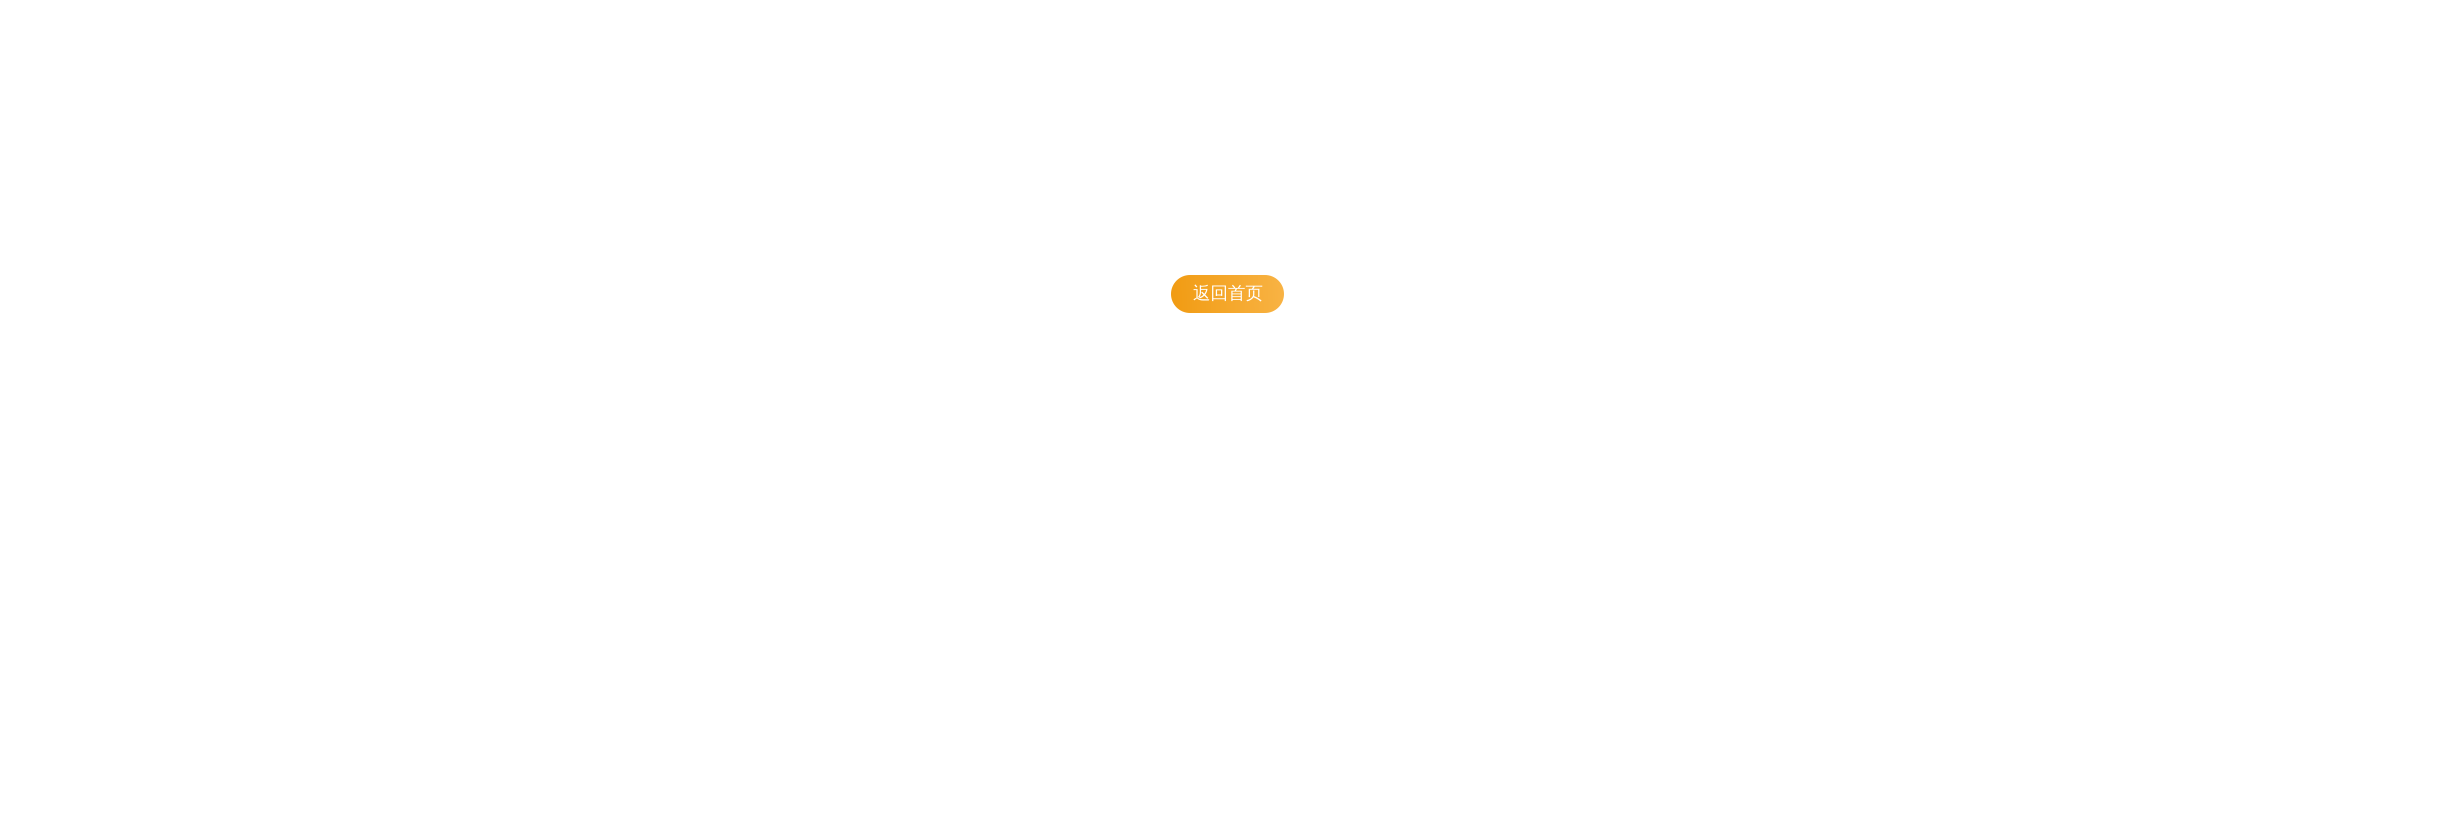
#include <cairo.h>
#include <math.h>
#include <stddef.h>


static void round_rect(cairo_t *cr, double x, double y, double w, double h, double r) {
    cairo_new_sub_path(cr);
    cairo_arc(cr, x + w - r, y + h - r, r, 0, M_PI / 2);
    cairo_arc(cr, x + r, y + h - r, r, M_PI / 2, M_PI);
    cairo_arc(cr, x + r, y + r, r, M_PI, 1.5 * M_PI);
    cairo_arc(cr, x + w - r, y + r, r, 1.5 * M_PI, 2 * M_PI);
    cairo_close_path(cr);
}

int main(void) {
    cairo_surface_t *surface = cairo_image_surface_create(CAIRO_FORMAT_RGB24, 2454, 824);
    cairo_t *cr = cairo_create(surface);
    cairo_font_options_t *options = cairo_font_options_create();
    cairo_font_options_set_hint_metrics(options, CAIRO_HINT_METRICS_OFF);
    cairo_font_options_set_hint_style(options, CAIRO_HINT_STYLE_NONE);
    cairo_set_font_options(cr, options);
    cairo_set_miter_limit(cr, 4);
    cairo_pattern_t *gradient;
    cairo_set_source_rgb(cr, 1, 1, 1);
    cairo_paint(cr);
    gradient = cairo_pattern_create_linear(1285, 291, 1170, 297);
    cairo_pattern_add_color_stop_rgba(gradient, 0, 0.973, 0.702, 0.267, 1);
    cairo_pattern_add_color_stop_rgba(gradient, 1, 0.945, 0.608, 0.071, 1);
    cairo_set_source(cr, gradient);
    cairo_pattern_destroy(gradient);
    round_rect(cr, 1171, 275, 113, 38, 19);
    cairo_fill(cr);
    cairo_select_font_face(cr, "WenQuanYi Zen Hei Medium", CAIRO_FONT_SLANT_NORMAL, CAIRO_FONT_WEIGHT_NORMAL);
    cairo_set_font_size(cr, 17.5);
    cairo_set_source_rgb(cr, 1, 1, 1);
    cairo_move_to(cr, 1193, 299);
    cairo_show_text(cr, "返回首页");
    cairo_surface_write_to_png(surface, "page.png");
    cairo_font_options_destroy(options);
    cairo_destroy(cr);
    cairo_surface_destroy(surface);
    return 0;
}
